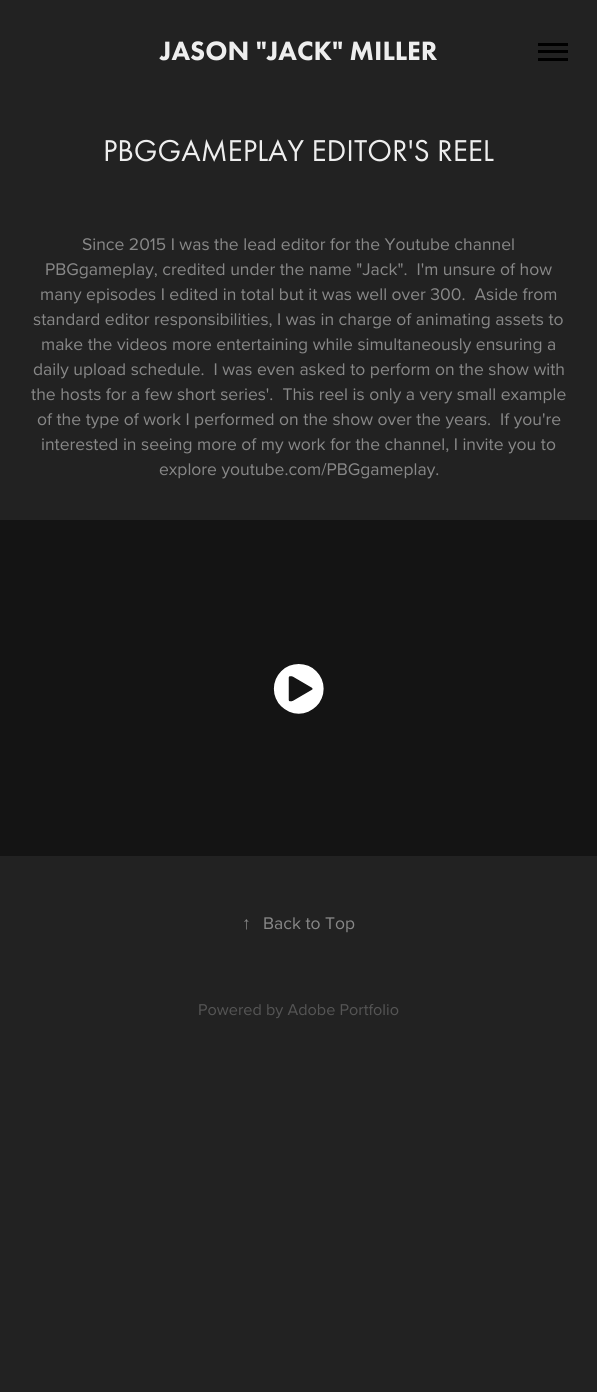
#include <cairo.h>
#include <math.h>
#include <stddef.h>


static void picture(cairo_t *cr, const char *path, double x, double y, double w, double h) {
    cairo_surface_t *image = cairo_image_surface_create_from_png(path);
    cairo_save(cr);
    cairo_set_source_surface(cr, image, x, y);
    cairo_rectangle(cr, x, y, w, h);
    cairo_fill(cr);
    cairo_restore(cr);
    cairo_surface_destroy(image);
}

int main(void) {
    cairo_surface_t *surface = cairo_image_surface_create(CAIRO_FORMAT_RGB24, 597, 1392);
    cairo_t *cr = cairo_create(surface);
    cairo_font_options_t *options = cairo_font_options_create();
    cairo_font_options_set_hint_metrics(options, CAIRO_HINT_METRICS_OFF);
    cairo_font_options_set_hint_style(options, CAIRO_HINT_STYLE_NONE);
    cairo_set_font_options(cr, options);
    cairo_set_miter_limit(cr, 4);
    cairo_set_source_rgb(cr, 0.133, 0.133, 0.133);
    cairo_paint(cr);
    cairo_select_font_face(cr, "Futura PT Black", CAIRO_FONT_SLANT_NORMAL, CAIRO_FONT_WEIGHT_NORMAL);
    cairo_set_font_size(cr, 27.5);
    cairo_set_source_rgb(cr, 0.933, 0.933, 0.933);
    cairo_move_to(cr, 160, 60);
    cairo_show_text(cr, "JASON \"JACK\" MILLER");
    cairo_set_source_rgb(cr, 0, 0, 0);
    cairo_rectangle(cr, 538, 43, 30, 3);
    cairo_fill(cr);
    cairo_rectangle(cr, 538, 50, 30, 3);
    cairo_fill(cr);
    cairo_rectangle(cr, 538, 58, 30, 3);
    cairo_fill(cr);
    cairo_select_font_face(cr, "Futura PT", CAIRO_FONT_SLANT_NORMAL, CAIRO_FONT_WEIGHT_NORMAL);
    cairo_set_font_size(cr, 31.25);
    cairo_set_source_rgb(cr, 0.933, 0.933, 0.933);
    cairo_move_to(cr, 103, 161);
    cairo_show_text(cr, "PBGGAMEPLAY EDITOR'S REEL");
    cairo_select_font_face(cr, "Proxima Nova", CAIRO_FONT_SLANT_NORMAL, CAIRO_FONT_WEIGHT_NORMAL);
    cairo_set_font_size(cr, 17.5);
    cairo_set_source_rgb(cr, 0.533, 0.533, 0.533);
    cairo_move_to(cr, 82, 250);
    cairo_show_text(cr, "Since 2015 I was the lead editor for the Youtube channel");
    cairo_move_to(cr, 45, 275);
    cairo_show_text(cr, "PBGgameplay, credited under the name \"Jack\".  I'm unsure of how");
    cairo_move_to(cr, 40, 300);
    cairo_show_text(cr, "many episodes I edited in total but it was well over 300.  Aside from");
    cairo_move_to(cr, 33, 325);
    cairo_show_text(cr, "standard editor responsibilities, I was in charge of animating assets to");
    cairo_move_to(cr, 41, 350);
    cairo_show_text(cr, "make the videos more entertaining while simultaneously ensuring a");
    cairo_move_to(cr, 33, 375);
    cairo_show_text(cr, "daily upload schedule.  I was even asked to perform on the show with");
    cairo_move_to(cr, 31, 400);
    cairo_show_text(cr, "the hosts for a few short series'.  This reel is only a very small example");
    cairo_move_to(cr, 37, 425);
    cairo_show_text(cr, "of the type of work I performed on the show over the years.  If you're");
    cairo_move_to(cr, 41, 450);
    cairo_show_text(cr, "interested in seeing more of my work for the channel, I invite you to");
    cairo_move_to(cr, 159, 475);
    cairo_show_text(cr, "explore youtube.com/PBGgameplay.");
    picture(cr, "img1.png", 0, 520, 597, 336);
    cairo_select_font_face(cr, "Liberation Serif", CAIRO_FONT_SLANT_NORMAL, CAIRO_FONT_WEIGHT_NORMAL);
    cairo_move_to(cr, 242, 929);
    cairo_show_text(cr, "↑");
    cairo_select_font_face(cr, "Proxima Nova", CAIRO_FONT_SLANT_NORMAL, CAIRO_FONT_WEIGHT_NORMAL);
    cairo_move_to(cr, 263, 929);
    cairo_show_text(cr, "Back to Top");
    cairo_set_font_size(cr, 16.25);
    cairo_set_source_rgb(cr, 0.333, 0.333, 0.333);
    cairo_move_to(cr, 198, 1015);
    cairo_show_text(cr, "Powered by Adobe Portfolio");
    cairo_surface_write_to_png(surface, "page.png");
    cairo_font_options_destroy(options);
    cairo_destroy(cr);
    cairo_surface_destroy(surface);
    return 0;
}
